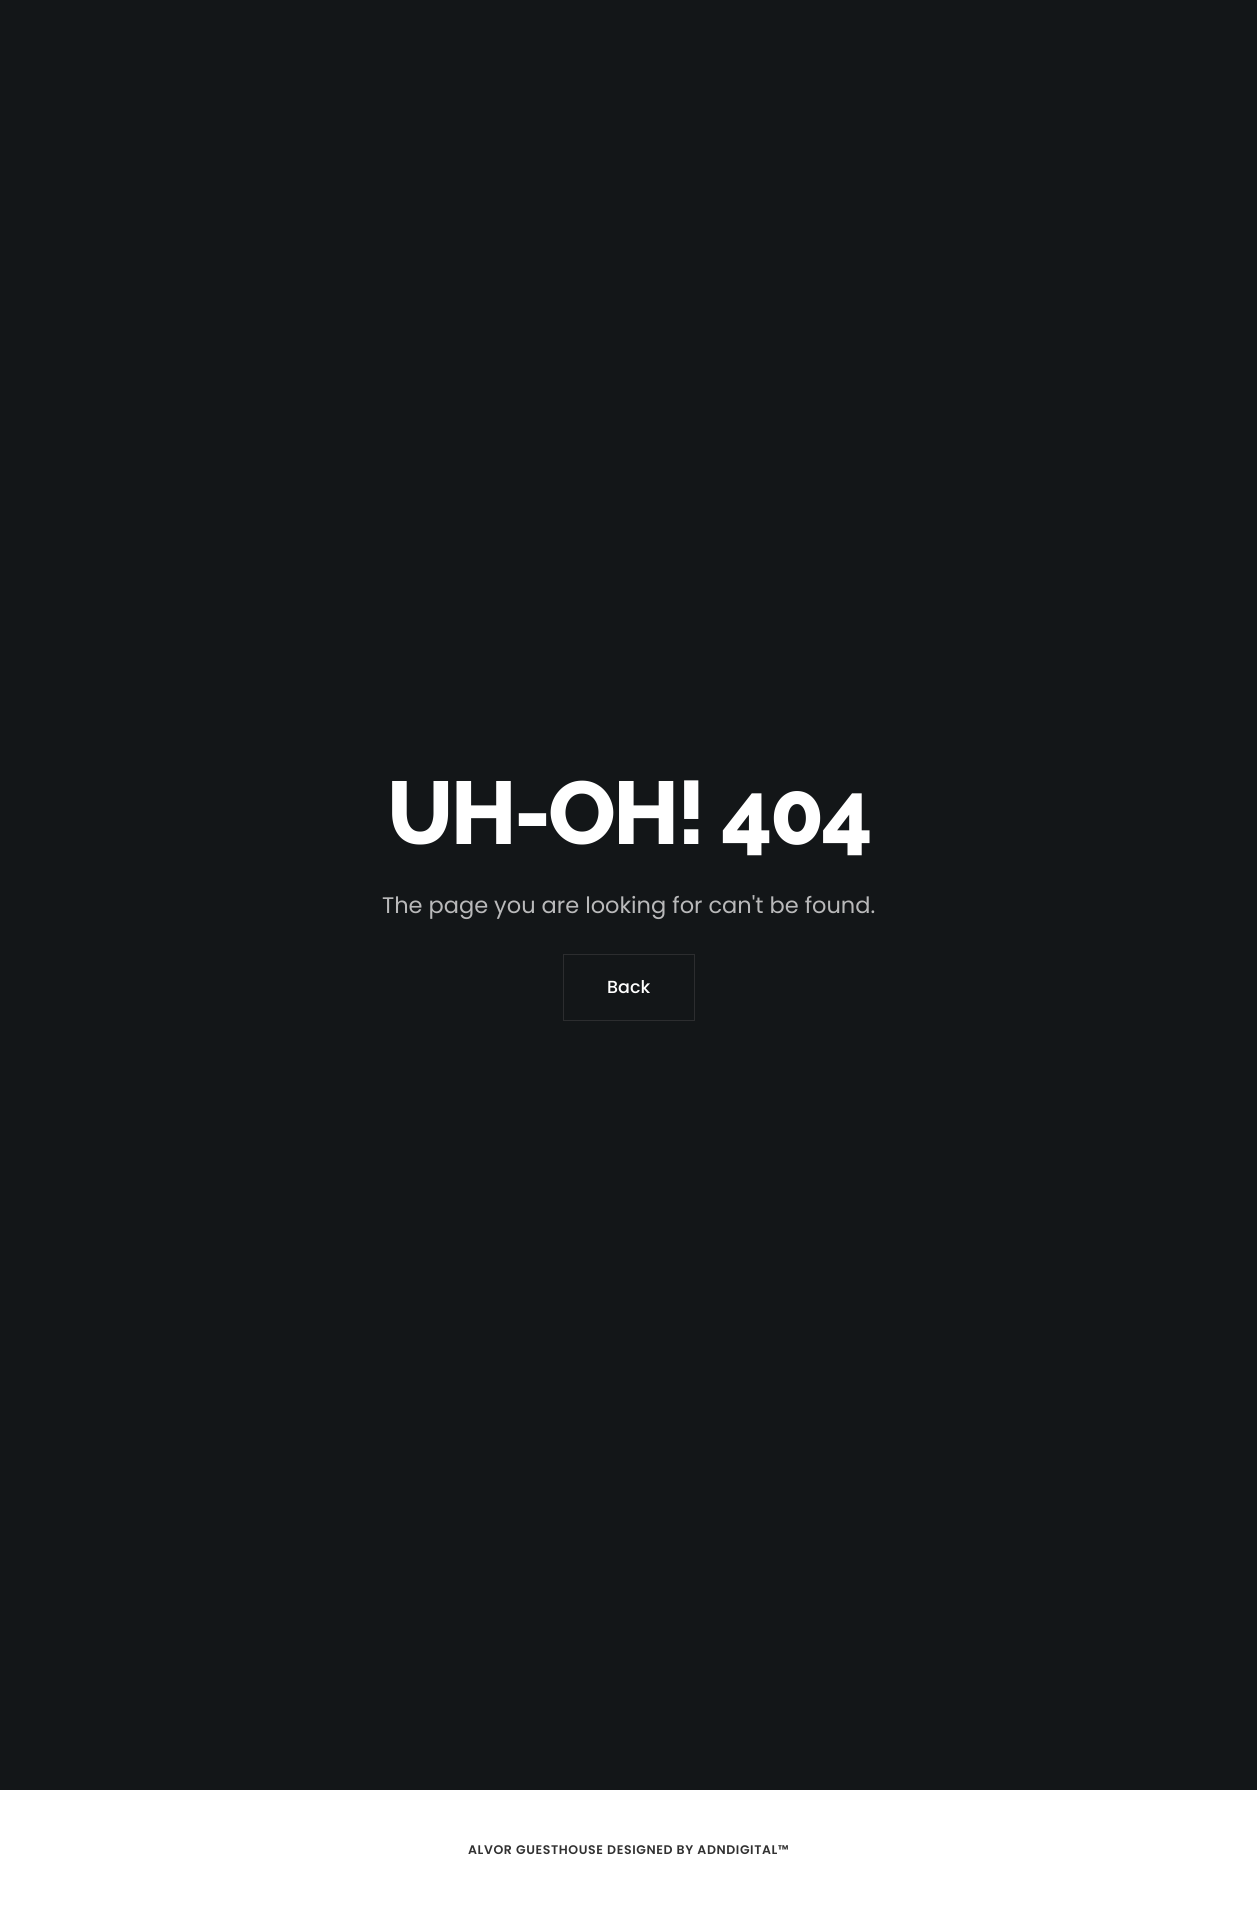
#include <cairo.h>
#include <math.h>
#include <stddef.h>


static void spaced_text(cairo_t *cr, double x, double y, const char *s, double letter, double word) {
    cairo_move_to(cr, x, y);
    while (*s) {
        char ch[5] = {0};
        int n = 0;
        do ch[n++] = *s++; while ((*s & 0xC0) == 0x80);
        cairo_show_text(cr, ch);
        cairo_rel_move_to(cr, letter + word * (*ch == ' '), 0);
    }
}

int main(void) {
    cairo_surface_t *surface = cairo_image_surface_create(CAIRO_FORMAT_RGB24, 1257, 1908);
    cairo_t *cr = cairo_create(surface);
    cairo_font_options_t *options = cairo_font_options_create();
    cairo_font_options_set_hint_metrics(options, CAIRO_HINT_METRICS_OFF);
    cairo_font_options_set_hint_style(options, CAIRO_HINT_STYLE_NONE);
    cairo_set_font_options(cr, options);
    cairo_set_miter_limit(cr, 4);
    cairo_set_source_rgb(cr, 1, 1, 1);
    cairo_paint(cr);
    cairo_set_source_rgb(cr, 0.078, 0.086, 0.094);
    cairo_rectangle(cr, 0, 0, 1257, 1790);
    cairo_fill(cr);
    cairo_select_font_face(cr, "Raleway ExtraBold", CAIRO_FONT_SLANT_NORMAL, CAIRO_FONT_WEIGHT_NORMAL);
    cairo_set_font_size(cr, 88.75);
    cairo_set_source_rgb(cr, 1, 1, 1);
    spaced_text(cr, 387, 844, "UH-OH! 404", -2.75, 0);
    cairo_select_font_face(cr, "Poppins", CAIRO_FONT_SLANT_NORMAL, CAIRO_FONT_WEIGHT_NORMAL);
    cairo_set_font_size(cr, 22.5);
    cairo_set_source_rgb(cr, 0.725, 0.725, 0.729);
    cairo_move_to(cr, 382, 913);
    cairo_show_text(cr, "The page you are looking for can't be found.");
    cairo_rectangle(cr, 563.5, 954.5, 131, 66);
    cairo_set_source_rgb(cr, 0.173, 0.176, 0.184);
    cairo_set_line_width(cr, 1);
    cairo_stroke(cr);
    cairo_select_font_face(cr, "Poppins Medium", CAIRO_FONT_SLANT_NORMAL, CAIRO_FONT_WEIGHT_NORMAL);
    cairo_set_font_size(cr, 17.5);
    cairo_set_source_rgb(cr, 1, 1, 1);
    cairo_move_to(cr, 607, 993);
    cairo_show_text(cr, "Back");
    cairo_select_font_face(cr, "Poppins SemiBold", CAIRO_FONT_SLANT_NORMAL, CAIRO_FONT_WEIGHT_NORMAL);
    cairo_set_font_size(cr, 12.5);
    cairo_set_source_rgb(cr, 0.192, 0.192, 0.192);
    spaced_text(cr, 468, 1854, "ALVOR GUESTHOUSE DESIGNED BY ADNDIGITAL™", 0.6, 0);
    cairo_surface_write_to_png(surface, "page.png");
    cairo_font_options_destroy(options);
    cairo_destroy(cr);
    cairo_surface_destroy(surface);
    return 0;
}
